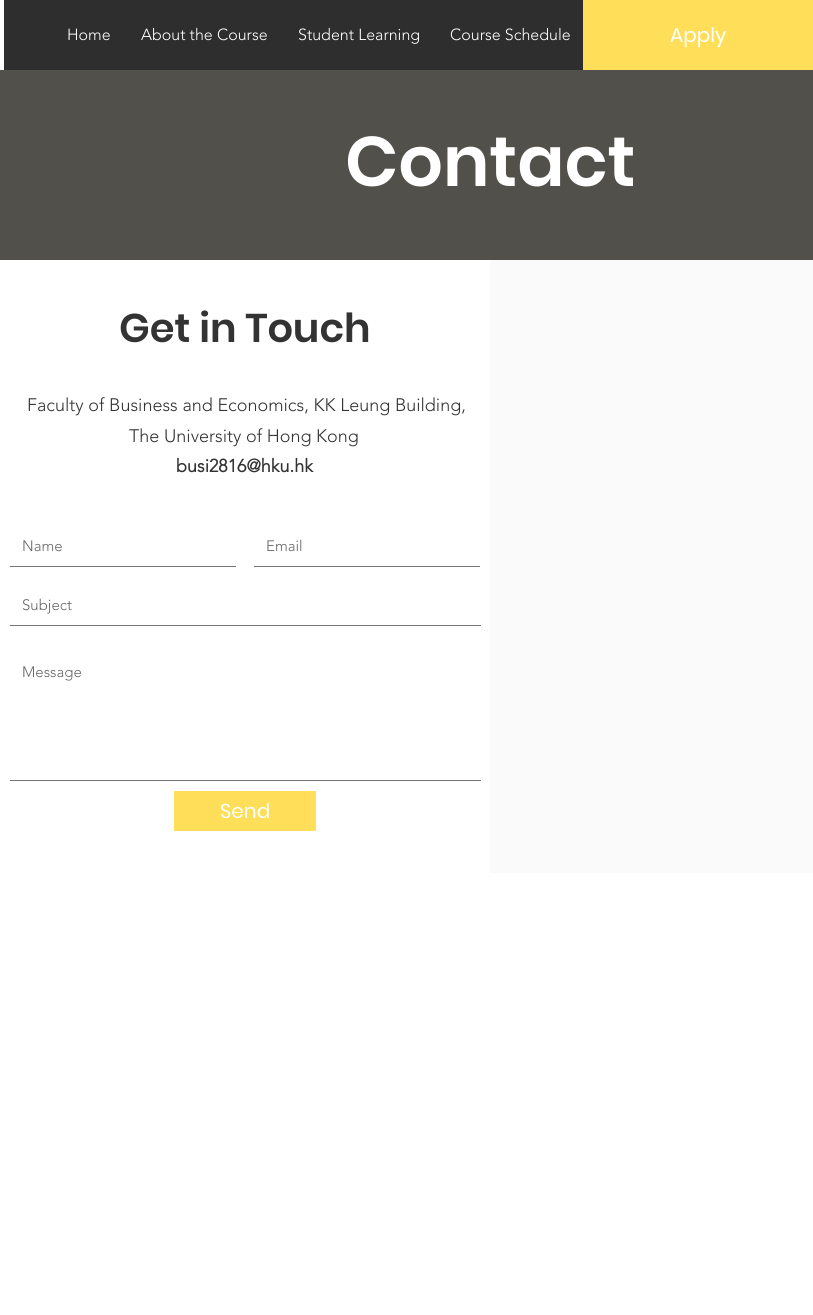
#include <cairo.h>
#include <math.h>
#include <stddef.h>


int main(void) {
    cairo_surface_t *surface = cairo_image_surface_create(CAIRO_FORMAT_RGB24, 813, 1315);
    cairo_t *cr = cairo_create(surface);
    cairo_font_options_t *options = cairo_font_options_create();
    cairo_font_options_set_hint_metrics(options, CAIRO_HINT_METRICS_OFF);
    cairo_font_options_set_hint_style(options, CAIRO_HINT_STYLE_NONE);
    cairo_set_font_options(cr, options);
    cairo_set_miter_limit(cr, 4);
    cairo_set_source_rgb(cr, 1, 1, 1);
    cairo_paint(cr);
    cairo_set_source_rgb(cr, 0.184, 0.18, 0.18);
    cairo_rectangle(cr, 4, 0, 579, 70);
    cairo_fill(cr);
    cairo_select_font_face(cr, "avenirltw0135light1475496 Light", CAIRO_FONT_SLANT_NORMAL, CAIRO_FONT_WEIGHT_NORMAL);
    cairo_set_font_size(cr, 16);
    cairo_set_source_rgb(cr, 1, 1, 1);
    cairo_move_to(cr, 67, 40);
    cairo_show_text(cr, "Home");
    cairo_move_to(cr, 141, 40);
    cairo_show_text(cr, "About the Course");
    cairo_move_to(cr, 298, 40);
    cairo_show_text(cr, "Student Learning");
    cairo_move_to(cr, 450, 40);
    cairo_show_text(cr, "Course Schedule");
    cairo_set_source_rgb(cr, 1, 0.871, 0.349);
    cairo_rectangle(cr, 583, 0, 230, 70);
    cairo_fill(cr);
    cairo_select_font_face(cr, "Poppins", CAIRO_FONT_SLANT_NORMAL, CAIRO_FONT_WEIGHT_NORMAL);
    cairo_set_font_size(cr, 20);
    cairo_set_source_rgb(cr, 1, 1, 1);
    cairo_move_to(cr, 670, 42);
    cairo_show_text(cr, "Apply");
    cairo_set_source_rgb(cr, 0.318, 0.314, 0.294);
    cairo_rectangle(cr, 0, 70, 813, 190);
    cairo_fill(cr);
    cairo_select_font_face(cr, "Poppins SemiBold", CAIRO_FONT_SLANT_NORMAL, CAIRO_FONT_WEIGHT_NORMAL);
    cairo_set_font_size(cr, 70);
    cairo_set_source_rgb(cr, 1, 1, 1);
    cairo_move_to(cr, 345, 186);
    cairo_show_text(cr, "Contact");
    cairo_set_font_size(cr, 40);
    cairo_set_source_rgb(cr, 0.2, 0.2, 0.2);
    cairo_move_to(cr, 119, 342);
    cairo_show_text(cr, "Get in Touch");
    cairo_select_font_face(cr, "avenirltw0135light1475496 Light", CAIRO_FONT_SLANT_NORMAL, CAIRO_FONT_WEIGHT_NORMAL);
    cairo_set_font_size(cr, 18);
    cairo_move_to(cr, 27, 411);
    cairo_show_text(cr, "Faculty of Business and Economics, KK Leung Building,");
    cairo_move_to(cr, 129, 442);
    cairo_show_text(cr, "The University of Hong Kong");
    cairo_select_font_face(cr, "avenirltw0135light1475496", CAIRO_FONT_SLANT_NORMAL, CAIRO_FONT_WEIGHT_BOLD);
    cairo_move_to(cr, 176, 472);
    cairo_show_text(cr, "busi2816@hku.hk");
    cairo_set_source_rgb(cr, 0.451, 0.451, 0.451);
    cairo_rectangle(cr, 10, 566, 226, 1);
    cairo_fill(cr);
    cairo_select_font_face(cr, "avenirltw0135light1475496 Light", CAIRO_FONT_SLANT_NORMAL, CAIRO_FONT_WEIGHT_NORMAL);
    cairo_set_font_size(cr, 15);
    cairo_set_source_rgb(cr, 0.4, 0.4, 0.4);
    cairo_move_to(cr, 22, 551);
    cairo_show_text(cr, "Name");
    cairo_set_source_rgb(cr, 0.451, 0.451, 0.451);
    cairo_rectangle(cr, 254, 566, 226, 1);
    cairo_fill(cr);
    cairo_set_source_rgb(cr, 0.4, 0.4, 0.4);
    cairo_move_to(cr, 266, 551);
    cairo_show_text(cr, "Email");
    cairo_set_source_rgb(cr, 0.451, 0.451, 0.451);
    cairo_rectangle(cr, 10, 625, 471, 1);
    cairo_fill(cr);
    cairo_set_source_rgb(cr, 0.4, 0.4, 0.4);
    cairo_move_to(cr, 22, 610);
    cairo_show_text(cr, "Subject");
    cairo_set_source_rgb(cr, 0.451, 0.451, 0.451);
    cairo_rectangle(cr, 10, 780, 471, 1);
    cairo_fill(cr);
    cairo_set_source_rgb(cr, 0.4, 0.4, 0.4);
    cairo_move_to(cr, 22, 677);
    cairo_show_text(cr, "Message");
    cairo_set_source_rgb(cr, 1, 0.871, 0.349);
    cairo_rectangle(cr, 174, 791, 142, 40);
    cairo_fill(cr);
    cairo_select_font_face(cr, "Poppins", CAIRO_FONT_SLANT_NORMAL, CAIRO_FONT_WEIGHT_NORMAL);
    cairo_set_font_size(cr, 20);
    cairo_set_source_rgb(cr, 1, 1, 1);
    cairo_move_to(cr, 220, 818);
    cairo_show_text(cr, "Send");
    cairo_set_source_rgb(cr, 0.98, 0.98, 0.98);
    cairo_rectangle(cr, 490, 260, 323, 613);
    cairo_fill(cr);
    cairo_surface_write_to_png(surface, "page.png");
    cairo_font_options_destroy(options);
    cairo_destroy(cr);
    cairo_surface_destroy(surface);
    return 0;
}
